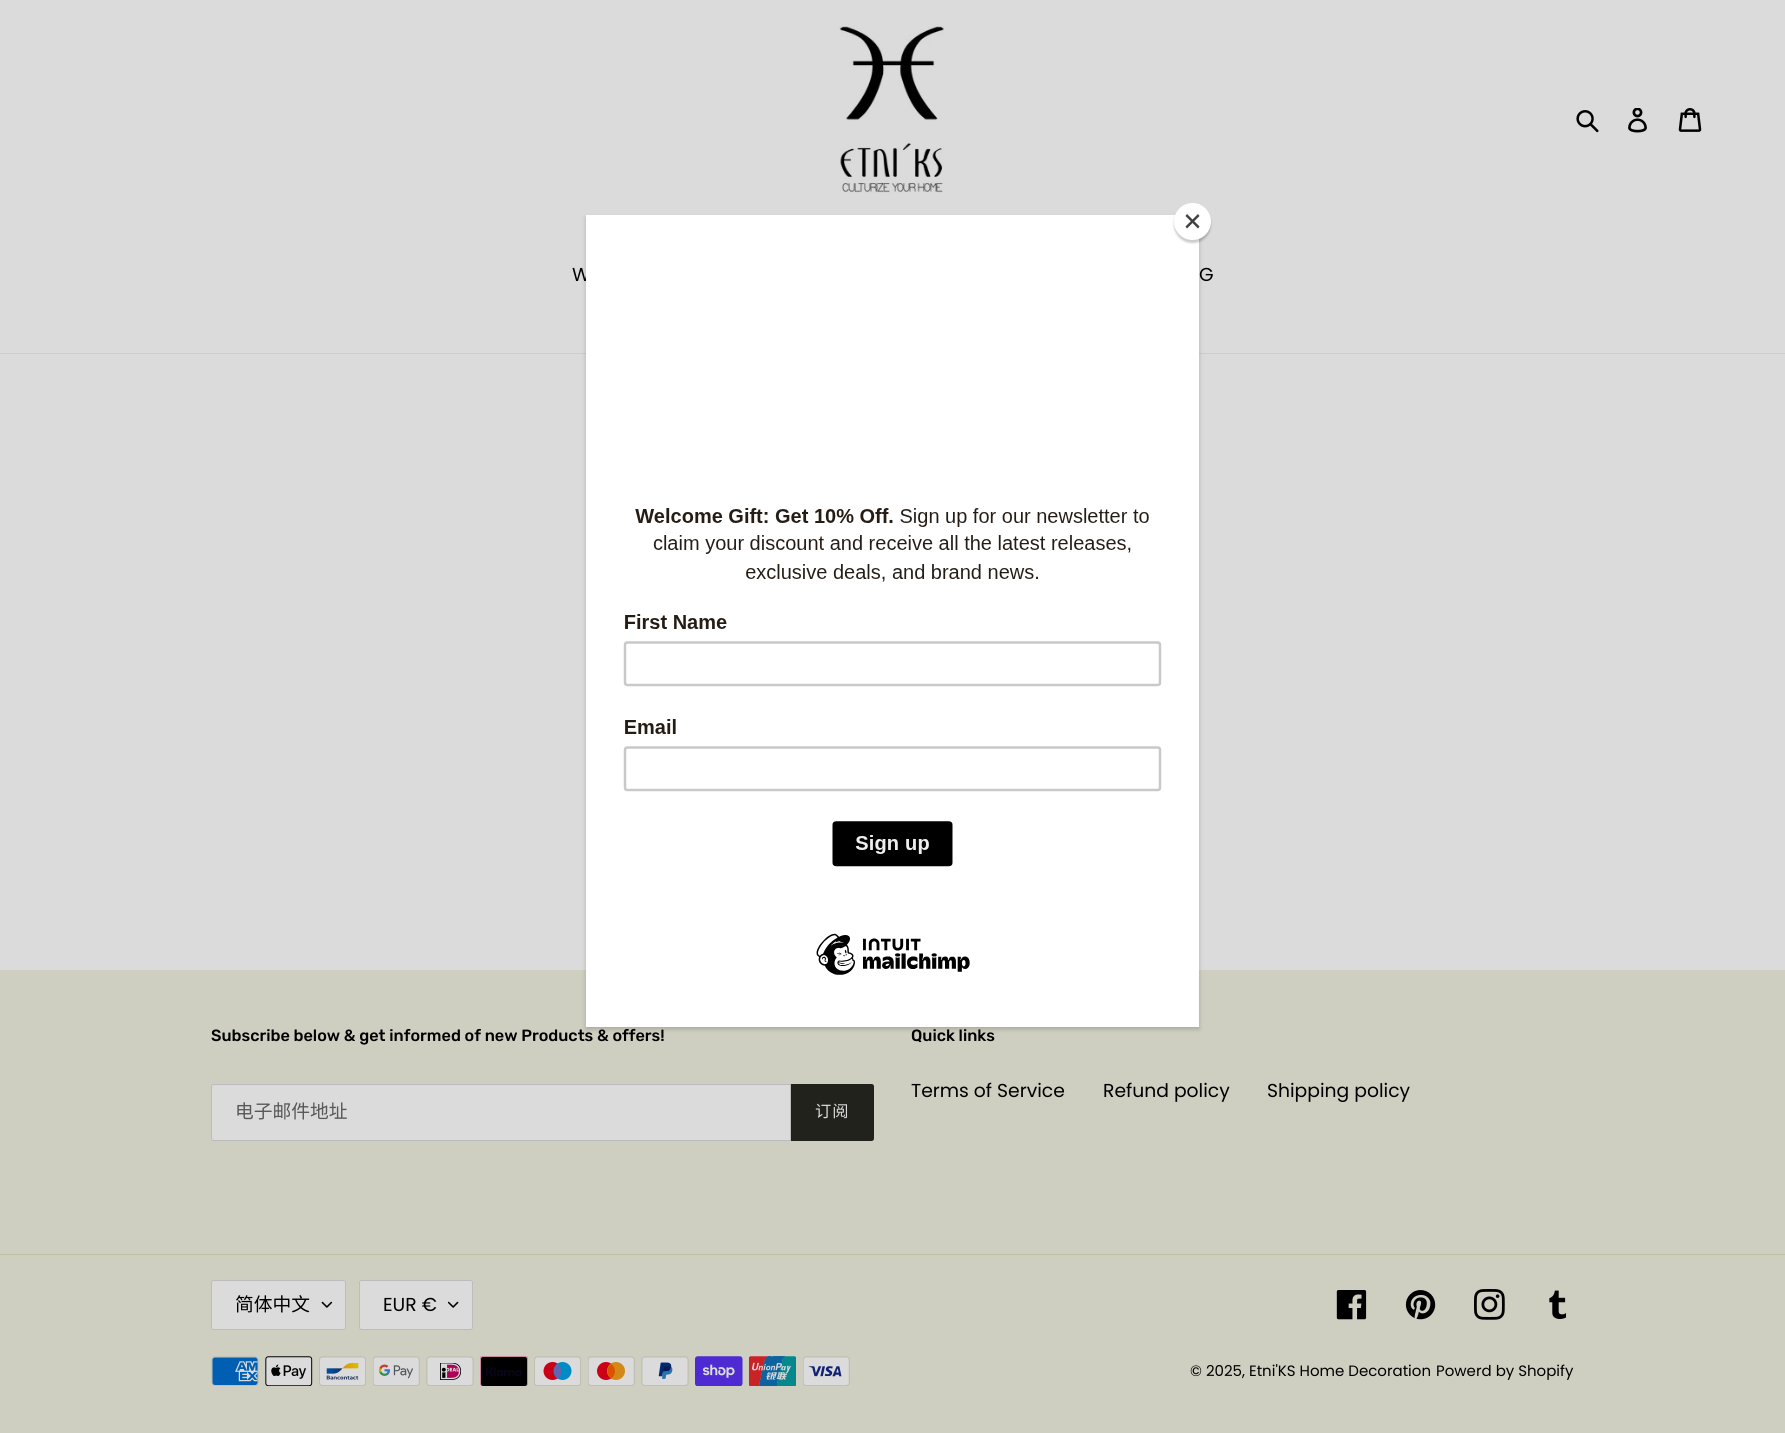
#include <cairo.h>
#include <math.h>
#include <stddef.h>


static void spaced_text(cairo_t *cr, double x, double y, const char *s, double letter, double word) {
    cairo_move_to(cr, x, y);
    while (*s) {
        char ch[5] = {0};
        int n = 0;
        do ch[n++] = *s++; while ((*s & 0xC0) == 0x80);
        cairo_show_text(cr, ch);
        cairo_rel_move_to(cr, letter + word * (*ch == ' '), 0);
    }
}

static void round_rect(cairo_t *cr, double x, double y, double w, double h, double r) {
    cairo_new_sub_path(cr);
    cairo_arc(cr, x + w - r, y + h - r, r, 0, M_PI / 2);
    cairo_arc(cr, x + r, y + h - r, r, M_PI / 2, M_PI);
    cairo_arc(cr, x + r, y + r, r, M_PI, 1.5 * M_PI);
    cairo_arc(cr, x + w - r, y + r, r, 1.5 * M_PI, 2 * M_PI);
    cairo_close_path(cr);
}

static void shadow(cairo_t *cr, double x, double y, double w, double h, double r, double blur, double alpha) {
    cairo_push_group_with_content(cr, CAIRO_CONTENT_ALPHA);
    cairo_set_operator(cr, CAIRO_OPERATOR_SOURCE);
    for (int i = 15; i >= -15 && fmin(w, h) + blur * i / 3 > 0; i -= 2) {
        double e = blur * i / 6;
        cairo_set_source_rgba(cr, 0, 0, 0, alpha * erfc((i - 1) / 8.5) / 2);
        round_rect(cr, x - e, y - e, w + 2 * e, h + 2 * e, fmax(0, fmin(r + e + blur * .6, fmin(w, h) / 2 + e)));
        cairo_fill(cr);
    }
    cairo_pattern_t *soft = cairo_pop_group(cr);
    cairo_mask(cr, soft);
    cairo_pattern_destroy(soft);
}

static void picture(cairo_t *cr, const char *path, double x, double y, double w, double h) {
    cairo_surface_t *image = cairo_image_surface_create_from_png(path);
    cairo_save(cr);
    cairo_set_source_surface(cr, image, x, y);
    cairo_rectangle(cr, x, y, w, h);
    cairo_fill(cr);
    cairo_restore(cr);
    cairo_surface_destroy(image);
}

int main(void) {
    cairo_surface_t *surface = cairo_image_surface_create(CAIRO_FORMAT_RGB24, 1785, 1433);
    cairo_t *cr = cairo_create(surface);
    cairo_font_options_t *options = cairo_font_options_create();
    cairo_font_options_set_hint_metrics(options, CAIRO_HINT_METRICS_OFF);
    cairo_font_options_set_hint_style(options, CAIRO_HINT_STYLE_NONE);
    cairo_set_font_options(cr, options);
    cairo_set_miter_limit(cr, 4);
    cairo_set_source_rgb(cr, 0.859, 0.859, 0.859);
    cairo_paint(cr);
    cairo_set_source_rgb(cr, 0.808, 0.812, 0.753);
    cairo_rectangle(cr, 0, 353, 1785, 1);
    cairo_fill(cr);
    cairo_rectangle(cr, 0, 970, 1785, 463);
    cairo_fill(cr);
    cairo_set_source_rgb(cr, 0, 0, 0);
    shadow(cr, 586, 218, 613, 811, 0, 2.5, 0.2);
    cairo_select_font_face(cr, "Poppins", CAIRO_FONT_SLANT_NORMAL, CAIRO_FONT_WEIGHT_NORMAL);
    cairo_set_font_size(cr, 18.75);
    cairo_set_source_rgb(cr, 0, 0, 0);
    cairo_move_to(cr, 572, 281);
    cairo_show_text(cr, "W");
    picture(cr, "img1.png", 586, 215, 613, 812);
    cairo_set_source_rgb(cr, 0, 0, 0);
    shadow(cr, 1174, 205, 37, 38, 18.5, 1, 0.2);
    cairo_set_source_rgb(cr, 1, 1, 1);
    cairo_arc(cr, 1192.5, 221.5, 18.5, 0, 2 * M_PI);
    cairo_fill(cr);
    cairo_set_source_rgb(cr, 0.255, 0.255, 0.255);
    cairo_new_path(cr);
    cairo_move_to(cr, 1198, 214);
    cairo_line_to(cr, 1199.5, 216);
    cairo_line_to(cr, 1187, 228.5);
    cairo_line_to(cr, 1185.5, 226.5);
    cairo_close_path(cr);
    cairo_fill(cr);
    cairo_new_path(cr);
    cairo_move_to(cr, 1185.5, 216);
    cairo_line_to(cr, 1187, 214);
    cairo_line_to(cr, 1199.5, 226.5);
    cairo_line_to(cr, 1198, 228.5);
    cairo_close_path(cr);
    cairo_fill(cr);
    picture(cr, "img2.png", 839, 26, 106, 167);
    picture(cr, "img3.png", 1576, 110, 23, 23);
    picture(cr, "img4.png", 1628, 108, 19, 25);
    picture(cr, "img5.png", 1678, 108, 24, 24);
    cairo_set_source_rgb(cr, 0, 0, 0);
    cairo_move_to(cr, 1199, 281);
    cairo_show_text(cr, "G");
    cairo_select_font_face(cr, "Rubik Medium", CAIRO_FONT_SLANT_NORMAL, CAIRO_FONT_WEIGHT_NORMAL);
    cairo_set_font_size(cr, 16.25);
    cairo_move_to(cr, 211, 1041);
    cairo_show_text(cr, "Subscribe below & get informed of new Products & offers!");
    cairo_set_source_rgb(cr, 0.859, 0.859, 0.859);
    cairo_new_path(cr);
    cairo_move_to(cr, 213.5, 1084.5);
    cairo_line_to(cr, 790.5, 1084.5);
    cairo_line_to(cr, 790.5, 1140.5);
    cairo_line_to(cr, 213.5, 1140.5);
    cairo_curve_to(cr, 212.5, 1140.5, 211.5, 1139.5, 211.5, 1138.5);
    cairo_line_to(cr, 211.5, 1086.5);
    cairo_curve_to(cr, 211.5, 1085.5, 212.5, 1084.5, 213.5, 1084.5);
    cairo_close_path(cr);
    cairo_fill_preserve(cr);
    cairo_set_source_rgb(cr, 0.741, 0.733, 0.733);
    cairo_set_line_width(cr, 1);
    cairo_stroke(cr);
    cairo_select_font_face(cr, "Noto Sans CJK SC", CAIRO_FONT_SLANT_NORMAL, CAIRO_FONT_WEIGHT_NORMAL);
    cairo_set_font_size(cr, 18.75);
    cairo_set_source_rgb(cr, 0.345, 0.345, 0.345);
    cairo_move_to(cr, 235, 1118);
    cairo_show_text(cr, "电子邮件地址");
    cairo_set_source_rgb(cr, 0.133, 0.133, 0.114);
    cairo_new_path(cr);
    cairo_move_to(cr, 791, 1084);
    cairo_line_to(cr, 871.5, 1084);
    cairo_curve_to(cr, 873, 1084, 874, 1085, 874, 1086.5);
    cairo_line_to(cr, 874, 1138.5);
    cairo_curve_to(cr, 874, 1140, 873, 1141, 871.5, 1141);
    cairo_line_to(cr, 791, 1141);
    cairo_close_path(cr);
    cairo_fill(cr);
    cairo_set_font_size(cr, 16.25);
    cairo_set_source_rgb(cr, 0.859, 0.859, 0.859);
    spaced_text(cr, 815, 1117, "订阅", 1, 0);
    cairo_select_font_face(cr, "Rubik Medium", CAIRO_FONT_SLANT_NORMAL, CAIRO_FONT_WEIGHT_NORMAL);
    cairo_set_source_rgb(cr, 0, 0, 0);
    cairo_move_to(cr, 911, 1041);
    cairo_show_text(cr, "Quick links");
    cairo_select_font_face(cr, "Poppins", CAIRO_FONT_SLANT_NORMAL, CAIRO_FONT_WEIGHT_NORMAL);
    cairo_set_font_size(cr, 18.75);
    cairo_move_to(cr, 911, 1097);
    cairo_show_text(cr, "Terms of Service");
    cairo_move_to(cr, 1103, 1097);
    cairo_show_text(cr, "Refund policy");
    cairo_move_to(cr, 1267, 1097);
    cairo_show_text(cr, "Shipping policy");
    cairo_set_source_rgb(cr, 0.745, 0.761, 0.635);
    cairo_rectangle(cr, 0, 1254, 1785, 1);
    cairo_fill(cr);
    cairo_set_source_rgb(cr, 0.859, 0.859, 0.859);
    round_rect(cr, 211, 1280, 135, 50, 2.5);
    cairo_fill(cr);
    picture(cr, "img6.png", 321, 1301, 12, 7);
    round_rect(cr, 211.5, 1280.5, 134, 49, 2);
    cairo_set_source_rgb(cr, 0.741, 0.733, 0.733);
    cairo_stroke(cr);
    cairo_select_font_face(cr, "Noto Sans CJK SC", CAIRO_FONT_SLANT_NORMAL, CAIRO_FONT_WEIGHT_NORMAL);
    cairo_set_source_rgb(cr, 0, 0, 0);
    cairo_move_to(cr, 235, 1311);
    cairo_show_text(cr, "简体中文");
    cairo_set_source_rgb(cr, 0.859, 0.859, 0.859);
    round_rect(cr, 359, 1280, 114, 50, 2.5);
    cairo_fill(cr);
    picture(cr, "img7.png", 448, 1301, 11, 7);
    round_rect(cr, 359.5, 1280.5, 113, 49, 2);
    cairo_set_source_rgb(cr, 0.741, 0.733, 0.733);
    cairo_stroke(cr);
    cairo_select_font_face(cr, "Poppins", CAIRO_FONT_SLANT_NORMAL, CAIRO_FONT_WEIGHT_NORMAL);
    cairo_set_source_rgb(cr, 0, 0, 0);
    cairo_move_to(cr, 383, 1311);
    cairo_show_text(cr, "EUR €");
    picture(cr, "img8.png", 1336, 1290, 31, 30);
    picture(cr, "img9.png", 1405, 1290, 31, 30);
    picture(cr, "img10.png", 1474, 1289, 31, 31);
    picture(cr, "img11.png", 1549, 1290, 18, 29);
    picture(cr, "img12.png", 211, 1356, 48, 30);
    picture(cr, "img13.png", 265, 1356, 48, 30);
    picture(cr, "img14.png", 319, 1356, 47, 30);
    picture(cr, "img15.png", 373, 1356, 47, 30);
    picture(cr, "img16.png", 426, 1356, 48, 30);
    picture(cr, "img17.png", 480, 1356, 48, 30);
    picture(cr, "img18.png", 534, 1356, 47, 30);
    picture(cr, "img19.png", 588, 1356, 47, 30);
    picture(cr, "img20.png", 641, 1356, 48, 30);
    picture(cr, "img21.png", 695, 1356, 48, 30);
    picture(cr, "img22.png", 749, 1356, 47, 30);
    picture(cr, "img23.png", 803, 1356, 47, 30);
    cairo_set_font_size(cr, 15);
    cairo_move_to(cr, 1190, 1376);
    cairo_show_text(cr, "© 2025, Etni'KS Home Decoration");
    cairo_move_to(cr, 1436, 1376);
    cairo_show_text(cr, "Powerd by Shopify");
    cairo_surface_write_to_png(surface, "page.png");
    cairo_font_options_destroy(options);
    cairo_destroy(cr);
    cairo_surface_destroy(surface);
    return 0;
}
